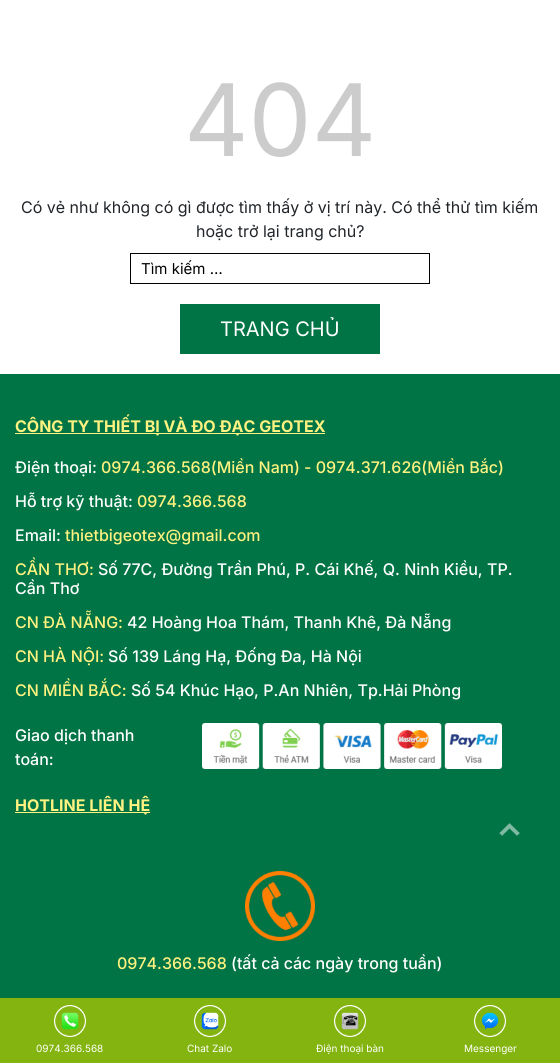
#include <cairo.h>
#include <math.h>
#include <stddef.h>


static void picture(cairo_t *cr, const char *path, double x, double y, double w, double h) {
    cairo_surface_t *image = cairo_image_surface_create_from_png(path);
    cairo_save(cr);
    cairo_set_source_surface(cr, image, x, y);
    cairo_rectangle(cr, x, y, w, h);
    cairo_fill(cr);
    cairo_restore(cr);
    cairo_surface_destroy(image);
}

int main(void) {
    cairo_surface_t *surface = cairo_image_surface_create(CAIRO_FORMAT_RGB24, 560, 1063);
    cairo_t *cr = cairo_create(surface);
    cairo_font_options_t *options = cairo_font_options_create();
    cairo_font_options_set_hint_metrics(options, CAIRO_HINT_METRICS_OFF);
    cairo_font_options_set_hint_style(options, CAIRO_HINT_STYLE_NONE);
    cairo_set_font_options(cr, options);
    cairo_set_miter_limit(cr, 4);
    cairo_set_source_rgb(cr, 1, 1, 1);
    cairo_paint(cr);
    cairo_select_font_face(cr, "Inter", CAIRO_FONT_SLANT_NORMAL, CAIRO_FONT_WEIGHT_NORMAL);
    cairo_set_font_size(cr, 100);
    cairo_set_source_rgb(cr, 0.8, 0.8, 0.8);
    cairo_move_to(cr, 184, 156);
    cairo_show_text(cr, "404");
    cairo_set_font_size(cr, 16);
    cairo_set_source_rgb(cr, 0.129, 0.145, 0.161);
    cairo_move_to(cr, 21, 213);
    cairo_show_text(cr, "Có vẻ như không có gì được tìm thấy ở vị trí này. Có thể thử tìm kiếm");
    cairo_move_to(cr, 196, 237);
    cairo_show_text(cr, "hoặc trở lại trang chủ?");
    cairo_rectangle(cr, 130.5, 253.5, 299, 30);
    cairo_set_source_rgb(cr, 0, 0, 0);
    cairo_set_line_width(cr, 1);
    cairo_stroke(cr);
    cairo_set_font_size(cr, 15);
    cairo_move_to(cr, 141, 274);
    cairo_show_text(cr, "Tìm kiếm …");
    cairo_set_source_rgb(cr, 0, 0.455, 0.271);
    cairo_rectangle(cr, 180, 304, 200, 50);
    cairo_fill(cr);
    cairo_set_font_size(cr, 20);
    cairo_set_source_rgb(cr, 1, 1, 1);
    cairo_move_to(cr, 220, 336);
    cairo_show_text(cr, "TRANG CHỦ");
    cairo_set_source_rgb(cr, 0, 0.455, 0.271);
    cairo_rectangle(cr, 0, 374, 560, 624);
    cairo_fill(cr);
    cairo_set_source_rgb(cr, 1, 0.949, 0.502);
    cairo_rectangle(cr, 15, 433, 310, 1);
    cairo_fill(cr);
    cairo_select_font_face(cr, "Inter", CAIRO_FONT_SLANT_NORMAL, CAIRO_FONT_WEIGHT_BOLD);
    cairo_set_font_size(cr, 16);
    cairo_move_to(cr, 15, 432);
    cairo_show_text(cr, "CÔNG TY THIẾT BỊ VÀ ĐO ĐẠC GEOTEX");
    cairo_select_font_face(cr, "Inter Medium", CAIRO_FONT_SLANT_NORMAL, CAIRO_FONT_WEIGHT_NORMAL);
    cairo_set_source_rgb(cr, 1, 1, 1);
    cairo_move_to(cr, 15, 473);
    cairo_show_text(cr, "Điện thoại:");
    cairo_set_source_rgb(cr, 1, 0.949, 0.502);
    cairo_move_to(cr, 101, 473);
    cairo_show_text(cr, "0974.366.568(Miền Nam) - 0974.371.626(Miền Bắc)");
    cairo_set_source_rgb(cr, 1, 1, 1);
    cairo_move_to(cr, 15, 507);
    cairo_show_text(cr, "Hỗ trợ kỹ thuật:");
    cairo_set_source_rgb(cr, 1, 0.949, 0.502);
    cairo_move_to(cr, 137, 507);
    cairo_show_text(cr, "0974.366.568");
    cairo_set_source_rgb(cr, 1, 1, 1);
    cairo_move_to(cr, 15, 541);
    cairo_show_text(cr, "Email:");
    cairo_set_source_rgb(cr, 1, 0.949, 0.502);
    cairo_move_to(cr, 65, 541);
    cairo_show_text(cr, "thietbigeotex@gmail.com");
    cairo_move_to(cr, 15, 575);
    cairo_show_text(cr, "CẦN THƠ:");
    cairo_set_source_rgb(cr, 1, 1, 1);
    cairo_move_to(cr, 98, 575);
    cairo_show_text(cr, "Số 77C, Đường Trần Phú, P. Cái Khế, Q. Ninh Kiều, TP.");
    cairo_move_to(cr, 15, 594);
    cairo_show_text(cr, "Cần Thơ");
    cairo_set_source_rgb(cr, 1, 0.949, 0.502);
    cairo_move_to(cr, 15, 628);
    cairo_show_text(cr, "CN ĐÀ NẴNG:");
    cairo_set_source_rgb(cr, 1, 1, 1);
    cairo_move_to(cr, 127, 628);
    cairo_show_text(cr, "42 Hoàng Hoa Thám, Thanh Khê, Đà Nẵng");
    cairo_set_source_rgb(cr, 1, 0.949, 0.502);
    cairo_move_to(cr, 15, 662);
    cairo_show_text(cr, "CN HÀ NỘI:");
    cairo_set_source_rgb(cr, 1, 1, 1);
    cairo_move_to(cr, 108, 662);
    cairo_show_text(cr, "Số 139 Láng Hạ, Đống Đa, Hà Nội");
    cairo_set_source_rgb(cr, 1, 0.949, 0.502);
    cairo_move_to(cr, 15, 696);
    cairo_show_text(cr, "CN MIỀN BẮC:");
    cairo_set_source_rgb(cr, 1, 1, 1);
    cairo_move_to(cr, 131, 696);
    cairo_show_text(cr, "Số 54 Khúc Hạo, P.An Nhiên, Tp.Hải Phòng");
    cairo_move_to(cr, 15, 741);
    cairo_show_text(cr, "Giao dịch thanh");
    cairo_move_to(cr, 15, 765);
    cairo_show_text(cr, "toán:");
    picture(cr, "img1.png", 202, 723, 300, 46);
    cairo_set_source_rgb(cr, 1, 0.949, 0.502);
    cairo_rectangle(cr, 15, 812, 135, 1);
    cairo_fill(cr);
    cairo_select_font_face(cr, "Inter", CAIRO_FONT_SLANT_NORMAL, CAIRO_FONT_WEIGHT_BOLD);
    cairo_move_to(cr, 15, 811);
    cairo_show_text(cr, "HOTLINE LIÊN HỆ");
    picture(cr, "img2.png", 245, 871, 70, 70);
    cairo_select_font_face(cr, "Inter Medium", CAIRO_FONT_SLANT_NORMAL, CAIRO_FONT_WEIGHT_NORMAL);
    cairo_move_to(cr, 117, 969);
    cairo_show_text(cr, "0974.366.568");
    cairo_set_source_rgb(cr, 1, 1, 1);
    cairo_move_to(cr, 231, 969);
    cairo_show_text(cr, "(tất cả các ngày trong tuần)");
    picture(cr, "img3.png", 499, 823, 21, 13);
    cairo_set_source_rgb(cr, 0.514, 0.706, 0.059);
    cairo_rectangle(cr, 0, 998, 560, 65);
    cairo_fill(cr);
    picture(cr, "img4.png", 54, 1005, 32, 32);
    cairo_select_font_face(cr, "Inter", CAIRO_FONT_SLANT_NORMAL, CAIRO_FONT_WEIGHT_NORMAL);
    cairo_set_font_size(cr, 10);
    cairo_set_source_rgb(cr, 1, 1, 1);
    cairo_move_to(cr, 36, 1052);
    cairo_show_text(cr, "0974.366.568");
    picture(cr, "img5.png", 194, 1005, 32, 32);
    cairo_move_to(cr, 187, 1052);
    cairo_show_text(cr, "Chat Zalo");
    picture(cr, "img6.png", 334, 1005, 32, 32);
    cairo_move_to(cr, 316, 1052);
    cairo_show_text(cr, "Điện thoại bàn");
    picture(cr, "img7.png", 474, 1005, 32, 32);
    cairo_move_to(cr, 464, 1052);
    cairo_show_text(cr, "Messenger");
    cairo_surface_write_to_png(surface, "page.png");
    cairo_font_options_destroy(options);
    cairo_destroy(cr);
    cairo_surface_destroy(surface);
    return 0;
}
